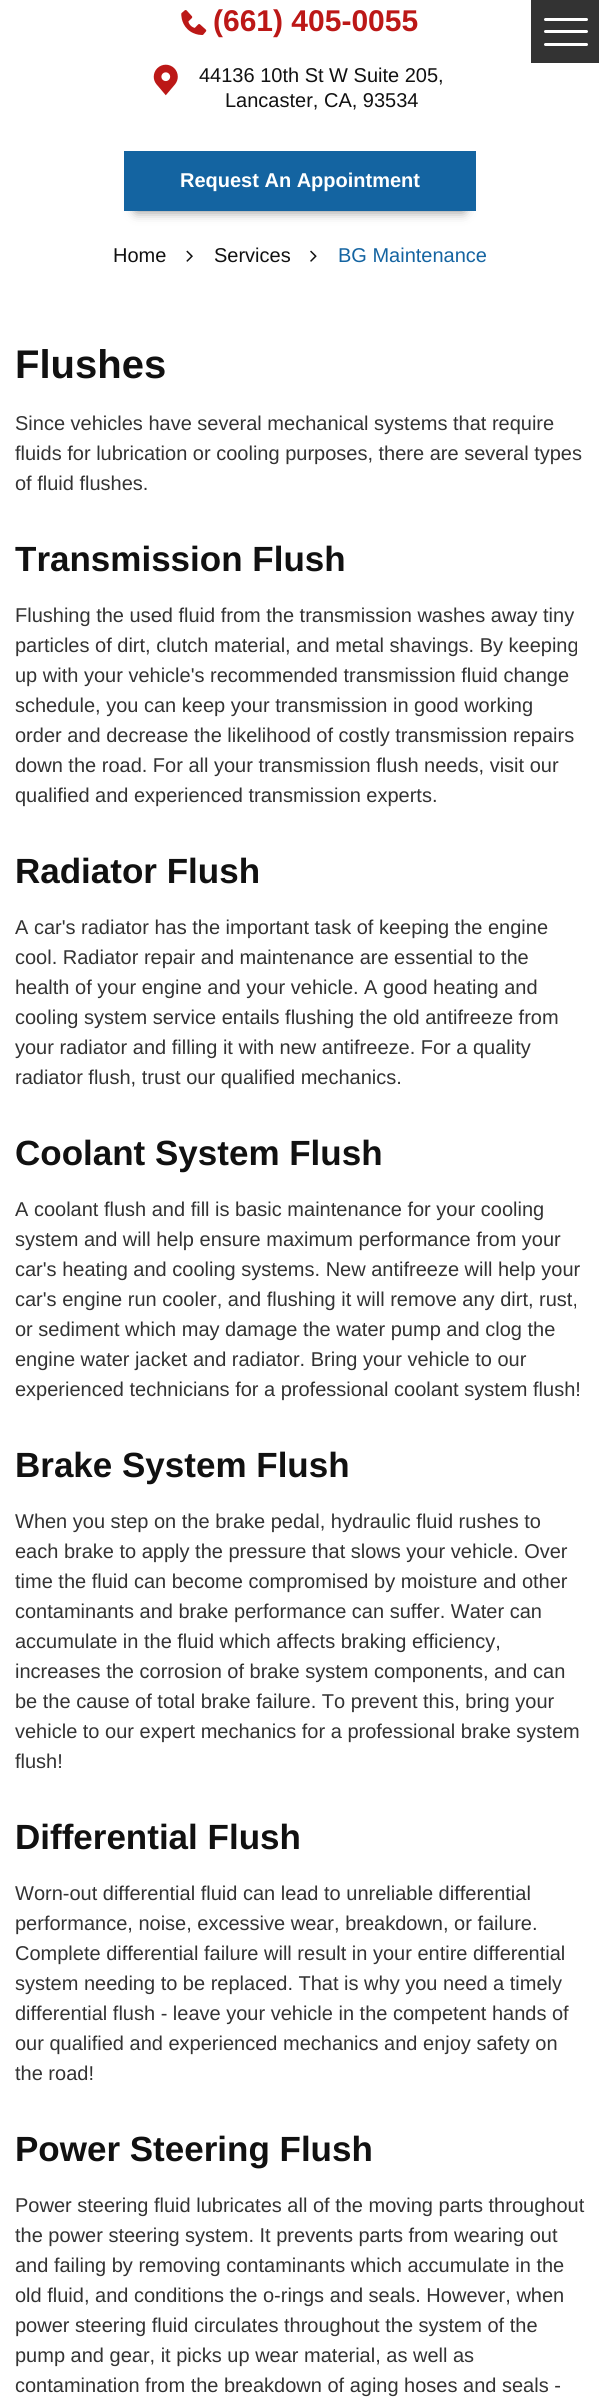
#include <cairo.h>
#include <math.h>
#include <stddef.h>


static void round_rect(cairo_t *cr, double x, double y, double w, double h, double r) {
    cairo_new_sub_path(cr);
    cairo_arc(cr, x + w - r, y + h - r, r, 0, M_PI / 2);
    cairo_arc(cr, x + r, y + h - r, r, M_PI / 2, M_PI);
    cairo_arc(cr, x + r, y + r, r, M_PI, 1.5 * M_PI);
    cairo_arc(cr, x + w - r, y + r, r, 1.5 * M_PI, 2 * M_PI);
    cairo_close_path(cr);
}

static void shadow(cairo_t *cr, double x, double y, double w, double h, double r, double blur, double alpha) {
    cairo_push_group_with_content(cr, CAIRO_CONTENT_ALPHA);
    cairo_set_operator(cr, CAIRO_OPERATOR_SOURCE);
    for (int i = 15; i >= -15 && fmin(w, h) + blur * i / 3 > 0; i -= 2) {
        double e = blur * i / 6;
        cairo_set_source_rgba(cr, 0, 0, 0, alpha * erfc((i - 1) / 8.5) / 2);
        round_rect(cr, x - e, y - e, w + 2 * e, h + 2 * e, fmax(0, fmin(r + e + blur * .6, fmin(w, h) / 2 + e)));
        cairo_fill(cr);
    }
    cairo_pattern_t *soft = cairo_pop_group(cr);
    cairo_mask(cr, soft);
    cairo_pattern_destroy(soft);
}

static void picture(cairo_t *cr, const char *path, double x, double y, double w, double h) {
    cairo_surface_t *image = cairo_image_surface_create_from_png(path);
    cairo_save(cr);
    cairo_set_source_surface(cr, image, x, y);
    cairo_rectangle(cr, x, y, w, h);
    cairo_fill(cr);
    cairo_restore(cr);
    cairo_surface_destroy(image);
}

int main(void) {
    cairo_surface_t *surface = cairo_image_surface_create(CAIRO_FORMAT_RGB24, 599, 2398);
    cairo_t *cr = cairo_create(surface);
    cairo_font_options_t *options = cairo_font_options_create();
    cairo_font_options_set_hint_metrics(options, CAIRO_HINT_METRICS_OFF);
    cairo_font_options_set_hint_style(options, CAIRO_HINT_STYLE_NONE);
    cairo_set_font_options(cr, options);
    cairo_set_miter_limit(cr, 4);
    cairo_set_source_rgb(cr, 1, 1, 1);
    cairo_paint(cr);
    picture(cr, "img1.png", 181, 10, 26, 25);
    cairo_select_font_face(cr, "Liberation Sans", CAIRO_FONT_SLANT_NORMAL, CAIRO_FONT_WEIGHT_BOLD);
    cairo_set_font_size(cr, 30);
    cairo_set_source_rgb(cr, 0.737, 0.094, 0.09);
    cairo_move_to(cr, 213, 31);
    cairo_show_text(cr, "(661) 405-0055");
    picture(cr, "img2.png", 153, 64, 25, 32);
    cairo_select_font_face(cr, "Liberation Sans", CAIRO_FONT_SLANT_NORMAL, CAIRO_FONT_WEIGHT_NORMAL);
    cairo_set_font_size(cr, 20);
    cairo_set_source_rgb(cr, 0.067, 0.067, 0.067);
    cairo_move_to(cr, 199, 82);
    cairo_show_text(cr, "44136 10th St W Suite 205");
    cairo_move_to(cr, 438, 82);
    cairo_show_text(cr, ",");
    cairo_move_to(cr, 225, 107);
    cairo_show_text(cr, "Lancaster, CA, 93534");
    cairo_set_source_rgb(cr, 0, 0, 0);
    shadow(cr, 136, 176, 328, 35, 0, 6, 0.5);
    cairo_set_source_rgb(cr, 0.082, 0.392, 0.631);
    cairo_rectangle(cr, 124, 151, 352, 60);
    cairo_fill(cr);
    cairo_select_font_face(cr, "Liberation Sans", CAIRO_FONT_SLANT_NORMAL, CAIRO_FONT_WEIGHT_BOLD);
    cairo_set_source_rgb(cr, 1, 1, 1);
    cairo_move_to(cr, 180, 187);
    cairo_show_text(cr, "Request An Appointment");
    cairo_set_source_rgb(cr, 0.2, 0.2, 0.2);
    cairo_rectangle(cr, 531, 0, 68, 63);
    cairo_fill(cr);
    cairo_set_source_rgb(cr, 1, 1, 1);
    round_rect(cr, 544, 30, 44, 3, 1.5);
    cairo_fill(cr);
    round_rect(cr, 544, 18, 44, 3, 1.5);
    cairo_fill(cr);
    round_rect(cr, 544, 43, 44, 3, 1.5);
    cairo_fill(cr);
    cairo_select_font_face(cr, "Liberation Sans", CAIRO_FONT_SLANT_NORMAL, CAIRO_FONT_WEIGHT_NORMAL);
    cairo_set_source_rgb(cr, 0.067, 0.067, 0.067);
    cairo_move_to(cr, 113, 262);
    cairo_show_text(cr, "Home");
    picture(cr, "img3.png", 186, 250, 7, 12);
    cairo_move_to(cr, 214, 262);
    cairo_show_text(cr, "Services");
    picture(cr, "img4.png", 310, 250, 7, 12);
    cairo_set_source_rgb(cr, 0.082, 0.392, 0.631);
    cairo_move_to(cr, 338, 262);
    cairo_show_text(cr, "BG Maintenance");
    cairo_select_font_face(cr, "Liberation Sans", CAIRO_FONT_SLANT_NORMAL, CAIRO_FONT_WEIGHT_BOLD);
    cairo_set_font_size(cr, 40);
    cairo_set_source_rgb(cr, 0.067, 0.067, 0.067);
    cairo_move_to(cr, 15, 378);
    cairo_show_text(cr, "Flushes");
    cairo_select_font_face(cr, "Liberation Sans", CAIRO_FONT_SLANT_NORMAL, CAIRO_FONT_WEIGHT_NORMAL);
    cairo_set_font_size(cr, 20);
    cairo_set_source_rgb(cr, 0.2, 0.2, 0.2);
    cairo_move_to(cr, 15, 430);
    cairo_show_text(cr, "Since vehicles have several mechanical systems that require");
    cairo_move_to(cr, 15, 460);
    cairo_show_text(cr, "fluids for lubrication or cooling purposes, there are several types");
    cairo_move_to(cr, 15, 490);
    cairo_show_text(cr, "of fluid flushes.");
    cairo_select_font_face(cr, "Liberation Sans", CAIRO_FONT_SLANT_NORMAL, CAIRO_FONT_WEIGHT_BOLD);
    cairo_set_font_size(cr, 35);
    cairo_set_source_rgb(cr, 0.067, 0.067, 0.067);
    cairo_move_to(cr, 15, 571);
    cairo_show_text(cr, "Transmission Flush");
    cairo_select_font_face(cr, "Liberation Sans", CAIRO_FONT_SLANT_NORMAL, CAIRO_FONT_WEIGHT_NORMAL);
    cairo_set_font_size(cr, 20);
    cairo_set_source_rgb(cr, 0.2, 0.2, 0.2);
    cairo_move_to(cr, 15, 622);
    cairo_show_text(cr, "Flushing the used fluid from the transmission washes away tiny");
    cairo_move_to(cr, 15, 652);
    cairo_show_text(cr, "particles of dirt, clutch material, and metal shavings. By keeping");
    cairo_move_to(cr, 15, 682);
    cairo_show_text(cr, "up with your vehicle's recommended transmission fluid change");
    cairo_move_to(cr, 15, 712);
    cairo_show_text(cr, "schedule, you can keep your transmission in good working");
    cairo_move_to(cr, 15, 742);
    cairo_show_text(cr, "order and decrease the likelihood of costly transmission repairs");
    cairo_move_to(cr, 15, 772);
    cairo_show_text(cr, "down the road. For all your transmission flush needs, visit our");
    cairo_move_to(cr, 15, 802);
    cairo_show_text(cr, "qualified and experienced transmission experts.");
    cairo_select_font_face(cr, "Liberation Sans", CAIRO_FONT_SLANT_NORMAL, CAIRO_FONT_WEIGHT_BOLD);
    cairo_set_font_size(cr, 35);
    cairo_set_source_rgb(cr, 0.067, 0.067, 0.067);
    cairo_move_to(cr, 15, 883);
    cairo_show_text(cr, "Radiator Flush");
    cairo_select_font_face(cr, "Liberation Sans", CAIRO_FONT_SLANT_NORMAL, CAIRO_FONT_WEIGHT_NORMAL);
    cairo_set_font_size(cr, 20);
    cairo_set_source_rgb(cr, 0.2, 0.2, 0.2);
    cairo_move_to(cr, 15, 934);
    cairo_show_text(cr, "A car's radiator has the important task of keeping the engine");
    cairo_move_to(cr, 15, 964);
    cairo_show_text(cr, "cool. Radiator repair and maintenance are essential to the");
    cairo_move_to(cr, 15, 994);
    cairo_show_text(cr, "health of your engine and your vehicle. A good heating and");
    cairo_move_to(cr, 15, 1024);
    cairo_show_text(cr, "cooling system service entails flushing the old antifreeze from");
    cairo_move_to(cr, 15, 1054);
    cairo_show_text(cr, "your radiator and filling it with new antifreeze. For a quality");
    cairo_move_to(cr, 15, 1084);
    cairo_show_text(cr, "radiator flush, trust our qualified mechanics.");
    cairo_select_font_face(cr, "Liberation Sans", CAIRO_FONT_SLANT_NORMAL, CAIRO_FONT_WEIGHT_BOLD);
    cairo_set_font_size(cr, 35);
    cairo_set_source_rgb(cr, 0.067, 0.067, 0.067);
    cairo_move_to(cr, 15, 1165);
    cairo_show_text(cr, "Coolant System Flush");
    cairo_select_font_face(cr, "Liberation Sans", CAIRO_FONT_SLANT_NORMAL, CAIRO_FONT_WEIGHT_NORMAL);
    cairo_set_font_size(cr, 20);
    cairo_set_source_rgb(cr, 0.2, 0.2, 0.2);
    cairo_move_to(cr, 15, 1216);
    cairo_show_text(cr, "A coolant flush and fill is basic maintenance for your cooling");
    cairo_move_to(cr, 15, 1246);
    cairo_show_text(cr, "system and will help ensure maximum performance from your");
    cairo_move_to(cr, 15, 1276);
    cairo_show_text(cr, "car's heating and cooling systems. New antifreeze will help your");
    cairo_move_to(cr, 15, 1306);
    cairo_show_text(cr, "car's engine run cooler, and flushing it will remove any dirt, rust,");
    cairo_move_to(cr, 15, 1336);
    cairo_show_text(cr, "or sediment which may damage the water pump and clog the");
    cairo_move_to(cr, 15, 1366);
    cairo_show_text(cr, "engine water jacket and radiator. Bring your vehicle to our");
    cairo_move_to(cr, 15, 1396);
    cairo_show_text(cr, "experienced technicians for a professional coolant system flush!");
    cairo_select_font_face(cr, "Liberation Sans", CAIRO_FONT_SLANT_NORMAL, CAIRO_FONT_WEIGHT_BOLD);
    cairo_set_font_size(cr, 35);
    cairo_set_source_rgb(cr, 0.067, 0.067, 0.067);
    cairo_move_to(cr, 15, 1477);
    cairo_show_text(cr, "Brake System Flush");
    cairo_select_font_face(cr, "Liberation Sans", CAIRO_FONT_SLANT_NORMAL, CAIRO_FONT_WEIGHT_NORMAL);
    cairo_set_font_size(cr, 20);
    cairo_set_source_rgb(cr, 0.2, 0.2, 0.2);
    cairo_move_to(cr, 15, 1528);
    cairo_show_text(cr, "When you step on the brake pedal, hydraulic fluid rushes to");
    cairo_move_to(cr, 15, 1558);
    cairo_show_text(cr, "each brake to apply the pressure that slows your vehicle. Over");
    cairo_move_to(cr, 15, 1588);
    cairo_show_text(cr, "time the fluid can become compromised by moisture and other");
    cairo_move_to(cr, 15, 1618);
    cairo_show_text(cr, "contaminants and brake performance can suffer. Water can");
    cairo_move_to(cr, 15, 1648);
    cairo_show_text(cr, "accumulate in the fluid which affects braking efficiency,");
    cairo_move_to(cr, 15, 1678);
    cairo_show_text(cr, "increases the corrosion of brake system components, and can");
    cairo_move_to(cr, 15, 1708);
    cairo_show_text(cr, "be the cause of total brake failure. To prevent this, bring your");
    cairo_move_to(cr, 15, 1738);
    cairo_show_text(cr, "vehicle to our expert mechanics for a professional brake system");
    cairo_move_to(cr, 15, 1768);
    cairo_show_text(cr, "flush!");
    cairo_select_font_face(cr, "Liberation Sans", CAIRO_FONT_SLANT_NORMAL, CAIRO_FONT_WEIGHT_BOLD);
    cairo_set_font_size(cr, 35);
    cairo_set_source_rgb(cr, 0.067, 0.067, 0.067);
    cairo_move_to(cr, 15, 1849);
    cairo_show_text(cr, "Differential Flush");
    cairo_select_font_face(cr, "Liberation Sans", CAIRO_FONT_SLANT_NORMAL, CAIRO_FONT_WEIGHT_NORMAL);
    cairo_set_font_size(cr, 20);
    cairo_set_source_rgb(cr, 0.2, 0.2, 0.2);
    cairo_move_to(cr, 15, 1900);
    cairo_show_text(cr, "Worn-out differential fluid can lead to unreliable differential");
    cairo_move_to(cr, 15, 1930);
    cairo_show_text(cr, "performance, noise, excessive wear, breakdown, or failure.");
    cairo_move_to(cr, 15, 1960);
    cairo_show_text(cr, "Complete differential failure will result in your entire differential");
    cairo_move_to(cr, 15, 1990);
    cairo_show_text(cr, "system needing to be replaced. That is why you need a timely");
    cairo_move_to(cr, 15, 2020);
    cairo_show_text(cr, "differential flush - leave your vehicle in the competent hands of");
    cairo_move_to(cr, 15, 2050);
    cairo_show_text(cr, "our qualified and experienced mechanics and enjoy safety on");
    cairo_move_to(cr, 15, 2080);
    cairo_show_text(cr, "the road!");
    cairo_select_font_face(cr, "Liberation Sans", CAIRO_FONT_SLANT_NORMAL, CAIRO_FONT_WEIGHT_BOLD);
    cairo_set_font_size(cr, 35);
    cairo_set_source_rgb(cr, 0.067, 0.067, 0.067);
    cairo_move_to(cr, 15, 2161);
    cairo_show_text(cr, "Power Steering Flush");
    cairo_select_font_face(cr, "Liberation Sans", CAIRO_FONT_SLANT_NORMAL, CAIRO_FONT_WEIGHT_NORMAL);
    cairo_set_font_size(cr, 20);
    cairo_set_source_rgb(cr, 0.2, 0.2, 0.2);
    cairo_move_to(cr, 15, 2212);
    cairo_show_text(cr, "Power steering fluid lubricates all of the moving parts throughout");
    cairo_move_to(cr, 15, 2242);
    cairo_show_text(cr, "the power steering system. It prevents parts from wearing out");
    cairo_move_to(cr, 15, 2272);
    cairo_show_text(cr, "and failing by removing contaminants which accumulate in the");
    cairo_move_to(cr, 15, 2302);
    cairo_show_text(cr, "old fluid, and conditions the o-rings and seals. However, when");
    cairo_move_to(cr, 15, 2332);
    cairo_show_text(cr, "power steering fluid circulates throughout the system of the");
    cairo_move_to(cr, 15, 2362);
    cairo_show_text(cr, "pump and gear, it picks up wear material, as well as");
    cairo_move_to(cr, 15, 2392);
    cairo_show_text(cr, "contamination from the breakdown of aging hoses and seals -");
    cairo_surface_write_to_png(surface, "page.png");
    cairo_font_options_destroy(options);
    cairo_destroy(cr);
    cairo_surface_destroy(surface);
    return 0;
}
